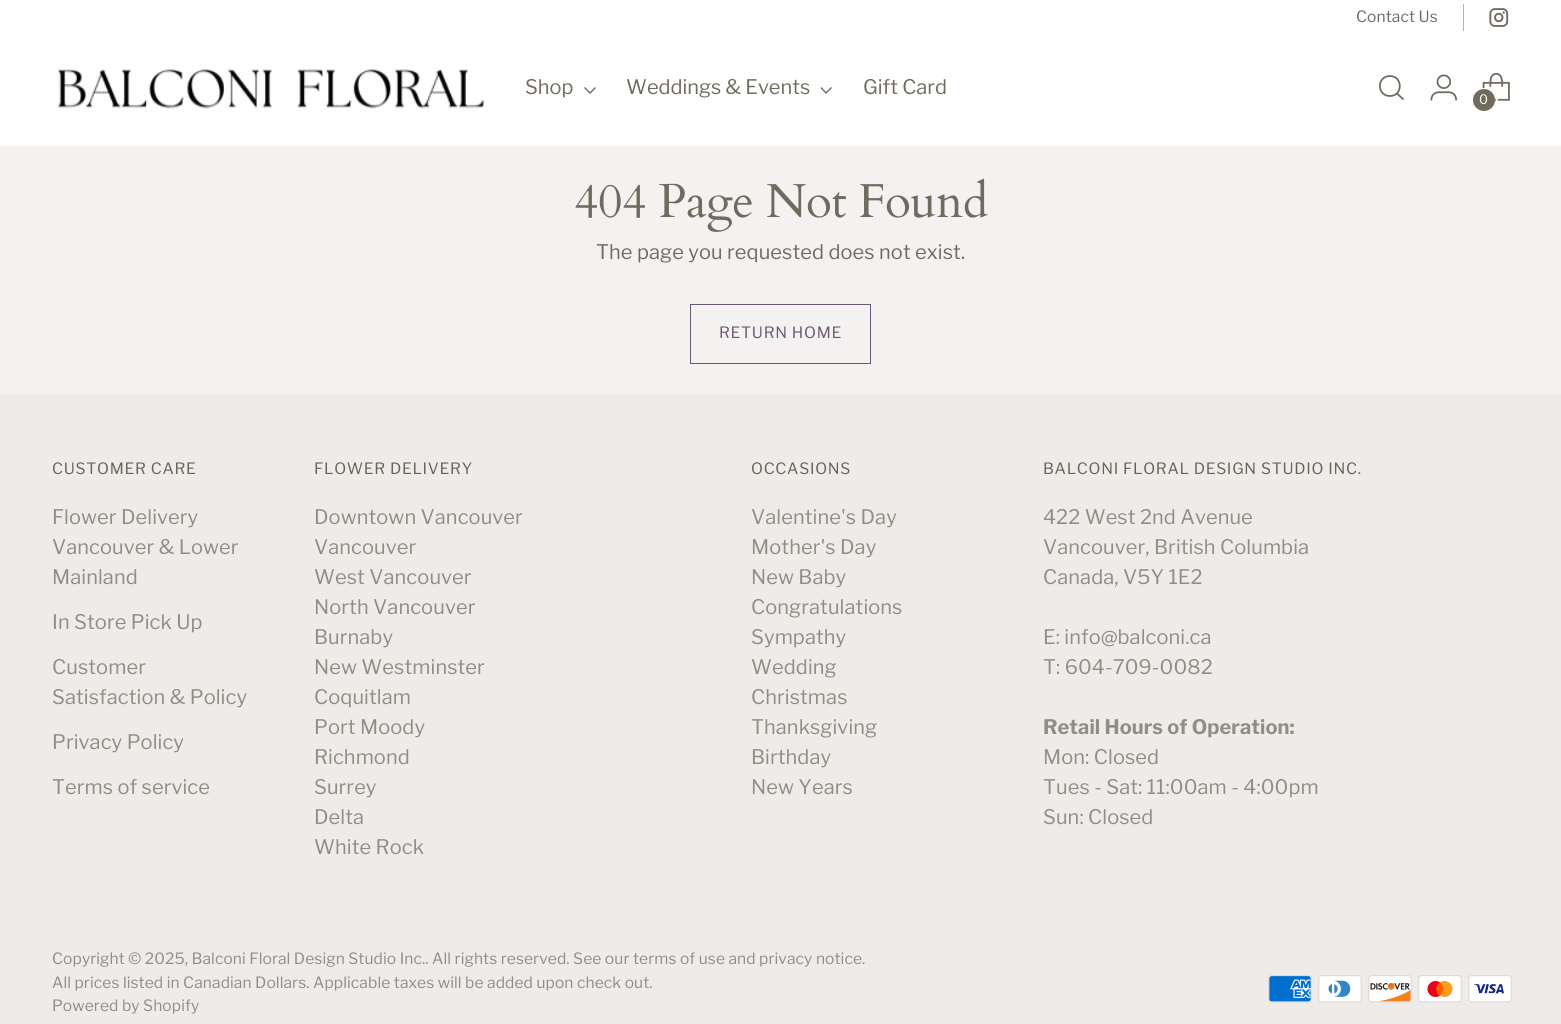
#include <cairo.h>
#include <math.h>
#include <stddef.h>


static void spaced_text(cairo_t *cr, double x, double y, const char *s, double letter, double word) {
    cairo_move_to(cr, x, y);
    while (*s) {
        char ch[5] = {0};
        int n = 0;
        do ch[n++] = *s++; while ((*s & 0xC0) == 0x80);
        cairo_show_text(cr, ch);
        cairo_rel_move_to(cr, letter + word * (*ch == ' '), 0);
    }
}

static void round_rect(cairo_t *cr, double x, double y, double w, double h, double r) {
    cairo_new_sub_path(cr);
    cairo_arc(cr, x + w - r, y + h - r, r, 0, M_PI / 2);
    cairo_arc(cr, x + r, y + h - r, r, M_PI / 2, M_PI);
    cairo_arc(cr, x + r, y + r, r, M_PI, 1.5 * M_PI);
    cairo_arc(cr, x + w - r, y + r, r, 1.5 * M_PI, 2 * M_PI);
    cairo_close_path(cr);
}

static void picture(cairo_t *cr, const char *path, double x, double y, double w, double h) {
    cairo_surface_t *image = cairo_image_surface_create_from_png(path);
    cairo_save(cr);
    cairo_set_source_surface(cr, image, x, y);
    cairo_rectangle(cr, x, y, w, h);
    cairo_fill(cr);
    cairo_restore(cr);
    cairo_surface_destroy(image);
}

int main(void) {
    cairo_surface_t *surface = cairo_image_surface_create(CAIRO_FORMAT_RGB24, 1561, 1024);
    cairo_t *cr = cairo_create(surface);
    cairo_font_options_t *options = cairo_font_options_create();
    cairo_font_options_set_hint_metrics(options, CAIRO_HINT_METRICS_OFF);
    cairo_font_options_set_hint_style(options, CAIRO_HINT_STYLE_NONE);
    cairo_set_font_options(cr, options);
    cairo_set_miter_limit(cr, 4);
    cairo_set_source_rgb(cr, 0.957, 0.949, 0.945);
    cairo_paint(cr);
    cairo_set_source_rgb(cr, 1, 1, 1);
    cairo_rectangle(cr, 0, 0, 1561, 146);
    cairo_fill(cr);
    cairo_select_font_face(cr, "Libre Franklin", CAIRO_FONT_SLANT_NORMAL, CAIRO_FONT_WEIGHT_NORMAL);
    cairo_set_font_size(cr, 15.55);
    cairo_set_source_rgb(cr, 0.439, 0.42, 0.373);
    spaced_text(cr, 1356, 22, "Contact Us", 0.1, 0);
    cairo_set_source_rgb(cr, 0.722, 0.71, 0.686);
    cairo_rectangle(cr, 1463, 4, 1, 27);
    cairo_fill(cr);
    picture(cr, "img1.png", 1489, 8, 20, 19);
    picture(cr, "img2.png", 58, 69, 426, 40);
    cairo_set_font_size(cr, 20);
    cairo_set_source_rgb(cr, 0.439, 0.42, 0.373);
    cairo_move_to(cr, 525, 94);
    cairo_show_text(cr, "Shop");
    cairo_new_path(cr);
    cairo_move_to(cr, 584.5, 87.5);
    cairo_line_to(cr, 590, 93);
    cairo_line_to(cr, 595.5, 87.5);
    cairo_set_line_width(cr, 1.4);
    cairo_stroke(cr);
    cairo_move_to(cr, 626, 94);
    cairo_show_text(cr, "Weddings & Events");
    cairo_new_path(cr);
    cairo_move_to(cr, 821, 87.5);
    cairo_line_to(cr, 826, 93);
    cairo_line_to(cr, 831.5, 87.5);
    cairo_stroke(cr);
    cairo_move_to(cr, 863, 94);
    cairo_show_text(cr, "Gift Card");
    cairo_new_path(cr);
    cairo_move_to(cr, 1390, 96);
    cairo_curve_to(cr, 1403, 96, 1403, 76, 1390, 76);
    cairo_curve_to(cr, 1376.5, 76, 1376.5, 96, 1390, 96);
    cairo_close_path(cr);
    cairo_set_line_width(cr, 1.8);
    cairo_set_line_cap(cr, CAIRO_LINE_CAP_ROUND);
    cairo_stroke(cr);
    cairo_new_path(cr);
    cairo_move_to(cr, 1397, 93.5);
    cairo_line_to(cr, 1403.5, 99.5);
    cairo_set_line_cap(cr, CAIRO_LINE_CAP_BUTT);
    cairo_stroke(cr);
    picture(cr, "img3.png", 1430, 74, 27, 27);
    picture(cr, "img4.png", 1482, 73, 28, 28);
    round_rect(cr, 1472, 89, 25, 24, 12);
    cairo_set_source_rgb(cr, 1, 1, 1);
    cairo_set_line_width(cr, 2);
    cairo_stroke(cr);
    cairo_set_source_rgb(cr, 0.439, 0.42, 0.373);
    cairo_arc(cr, 1484, 100, 11, 0, 2 * M_PI);
    cairo_fill(cr);
    cairo_set_font_size(cr, 13);
    cairo_set_source_rgb(cr, 1, 1, 1);
    spaced_text(cr, 1479, 104, "0", 0.1, 0);
    cairo_select_font_face(cr, "Cardo", CAIRO_FONT_SLANT_NORMAL, CAIRO_FONT_WEIGHT_NORMAL);
    cairo_set_font_size(cr, 47.75);
    cairo_set_source_rgb(cr, 0.439, 0.42, 0.373);
    spaced_text(cr, 574, 217, "404 Page Not Found", -0.5, 0);
    cairo_select_font_face(cr, "Libre Franklin", CAIRO_FONT_SLANT_NORMAL, CAIRO_FONT_WEIGHT_NORMAL);
    cairo_set_font_size(cr, 20);
    spaced_text(cr, 596, 259, "The page you requested does not exist.", 0.1, 0);
    cairo_rectangle(cr, 690.5, 304.5, 180, 59);
    cairo_set_source_rgb(cr, 0.42, 0.345, 0.463);
    cairo_set_line_width(cr, 1);
    cairo_stroke(cr);
    cairo_set_font_size(cr, 15.55);
    spaced_text(cr, 719, 338, "RETURN HOME", 0.75, 0);
    cairo_set_source_rgb(cr, 0.937, 0.918, 0.914);
    cairo_rectangle(cr, 0, 394, 1561, 630);
    cairo_fill(cr);
    cairo_set_source_rgb(cr, 0.408, 0.388, 0.349);
    spaced_text(cr, 52, 474, "CUSTOMER CARE", 0.75, 0);
    cairo_set_font_size(cr, 20);
    cairo_set_source_rgb(cr, 0.569, 0.549, 0.518);
    spaced_text(cr, 52, 524, "Flower Delivery", 0.1, 0);
    spaced_text(cr, 52, 554, "Vancouver & Lower", 0.1, 0);
    spaced_text(cr, 52, 584, "Mainland", 0.1, 0);
    spaced_text(cr, 52, 629, "In Store Pick Up", 0.1, 0);
    spaced_text(cr, 52, 674, "Customer", 0.1, 0);
    spaced_text(cr, 52, 704, "Satisfaction & Policy", 0.1, 0);
    spaced_text(cr, 52, 749, "Privacy Policy", 0.1, 0);
    spaced_text(cr, 52, 794, "Terms of service", 0.1, 0);
    cairo_set_font_size(cr, 15.55);
    cairo_set_source_rgb(cr, 0.408, 0.388, 0.349);
    spaced_text(cr, 314, 474, "FLOWER DELIVERY", 0.75, 0);
    cairo_set_font_size(cr, 20);
    cairo_set_source_rgb(cr, 0.569, 0.549, 0.518);
    spaced_text(cr, 314, 524, "Downtown Vancouver", 0.1, 0);
    spaced_text(cr, 314, 554, "Vancouver", 0.1, 0);
    spaced_text(cr, 314, 584, "West Vancouver", 0.1, 0);
    spaced_text(cr, 314, 614, "North Vancouver", 0.1, 0);
    spaced_text(cr, 314, 644, "Burnaby", 0.1, 0);
    spaced_text(cr, 314, 674, "New Westminster", 0.1, 0);
    spaced_text(cr, 314, 704, "Coquitlam", 0.1, 0);
    spaced_text(cr, 314, 734, "Port Moody", 0.1, 0);
    spaced_text(cr, 314, 764, "Richmond", 0.1, 0);
    spaced_text(cr, 314, 794, "Surrey", 0.1, 0);
    spaced_text(cr, 314, 824, "Delta", 0.1, 0);
    spaced_text(cr, 314, 854, "White Rock", 0.1, 0);
    cairo_set_font_size(cr, 15.55);
    cairo_set_source_rgb(cr, 0.408, 0.388, 0.349);
    spaced_text(cr, 751, 474, "OCCASIONS", 0.75, 0);
    cairo_set_font_size(cr, 20);
    cairo_set_source_rgb(cr, 0.569, 0.549, 0.518);
    spaced_text(cr, 751, 524, "Valentine's Day", 0.1, 0);
    spaced_text(cr, 751, 554, "Mother's Day", 0.1, 0);
    spaced_text(cr, 751, 584, "New Baby", 0.1, 0);
    spaced_text(cr, 751, 614, "Congratulations", 0.1, 0);
    spaced_text(cr, 751, 644, "Sympathy", 0.1, 0);
    spaced_text(cr, 751, 674, "Wedding", 0.1, 0);
    spaced_text(cr, 751, 704, "Christmas", 0.1, 0);
    spaced_text(cr, 751, 734, "Thanksgiving", 0.1, 0);
    spaced_text(cr, 751, 764, "Birthday", 0.1, 0);
    spaced_text(cr, 751, 794, "New Years", 0.1, 0);
    cairo_set_font_size(cr, 15.55);
    cairo_set_source_rgb(cr, 0.408, 0.388, 0.349);
    spaced_text(cr, 1043, 474, "BALCONI FLORAL DESIGN STUDIO INC.", 0.75, 0);
    cairo_set_font_size(cr, 20);
    cairo_set_source_rgb(cr, 0.569, 0.549, 0.518);
    spaced_text(cr, 1043, 524, "422 West 2nd Avenue", 0.1, 0);
    spaced_text(cr, 1043, 554, "Vancouver, British Columbia", 0.1, 0);
    spaced_text(cr, 1043, 584, "Canada, V5Y 1E2", 0.1, 0);
    spaced_text(cr, 1043, 644, "E: info@balconi.ca", 0.1, 0);
    spaced_text(cr, 1043, 674, "T: 604-709-0082", 0.1, 0);
    cairo_select_font_face(cr, "Libre Franklin", CAIRO_FONT_SLANT_NORMAL, CAIRO_FONT_WEIGHT_BOLD);
    spaced_text(cr, 1043, 734, "Retail Hours of Operation:", 0.1, 0);
    cairo_select_font_face(cr, "Libre Franklin", CAIRO_FONT_SLANT_NORMAL, CAIRO_FONT_WEIGHT_NORMAL);
    spaced_text(cr, 1043, 764, "Mon: Closed", 0.1, 0);
    spaced_text(cr, 1043, 794, "Tues - Sat: 11:00am - 4:00pm", 0.1, 0);
    spaced_text(cr, 1043, 824, "Sun: Closed", 0.1, 0);
    cairo_set_font_size(cr, 15.55);
    spaced_text(cr, 52, 964, "Copyright © 2025, Balconi Floral Design Studio Inc.. All rights reserved. See our terms of use and privacy notice.", 0.1, 0);
    spaced_text(cr, 52, 988, "All prices listed in Canadian Dollars. Applicable taxes will be added upon check out.", 0.1, 0);
    spaced_text(cr, 52, 1011, "Powered by Shopify", 0.1, 0);
    picture(cr, "img5.png", 1268, 975, 44, 28);
    picture(cr, "img6.png", 1318, 975, 44, 28);
    picture(cr, "img7.png", 1368, 975, 44, 28);
    picture(cr, "img8.png", 1418, 975, 44, 28);
    picture(cr, "img9.png", 1468, 975, 44, 28);
    cairo_surface_write_to_png(surface, "page.png");
    cairo_font_options_destroy(options);
    cairo_destroy(cr);
    cairo_surface_destroy(surface);
    return 0;
}
